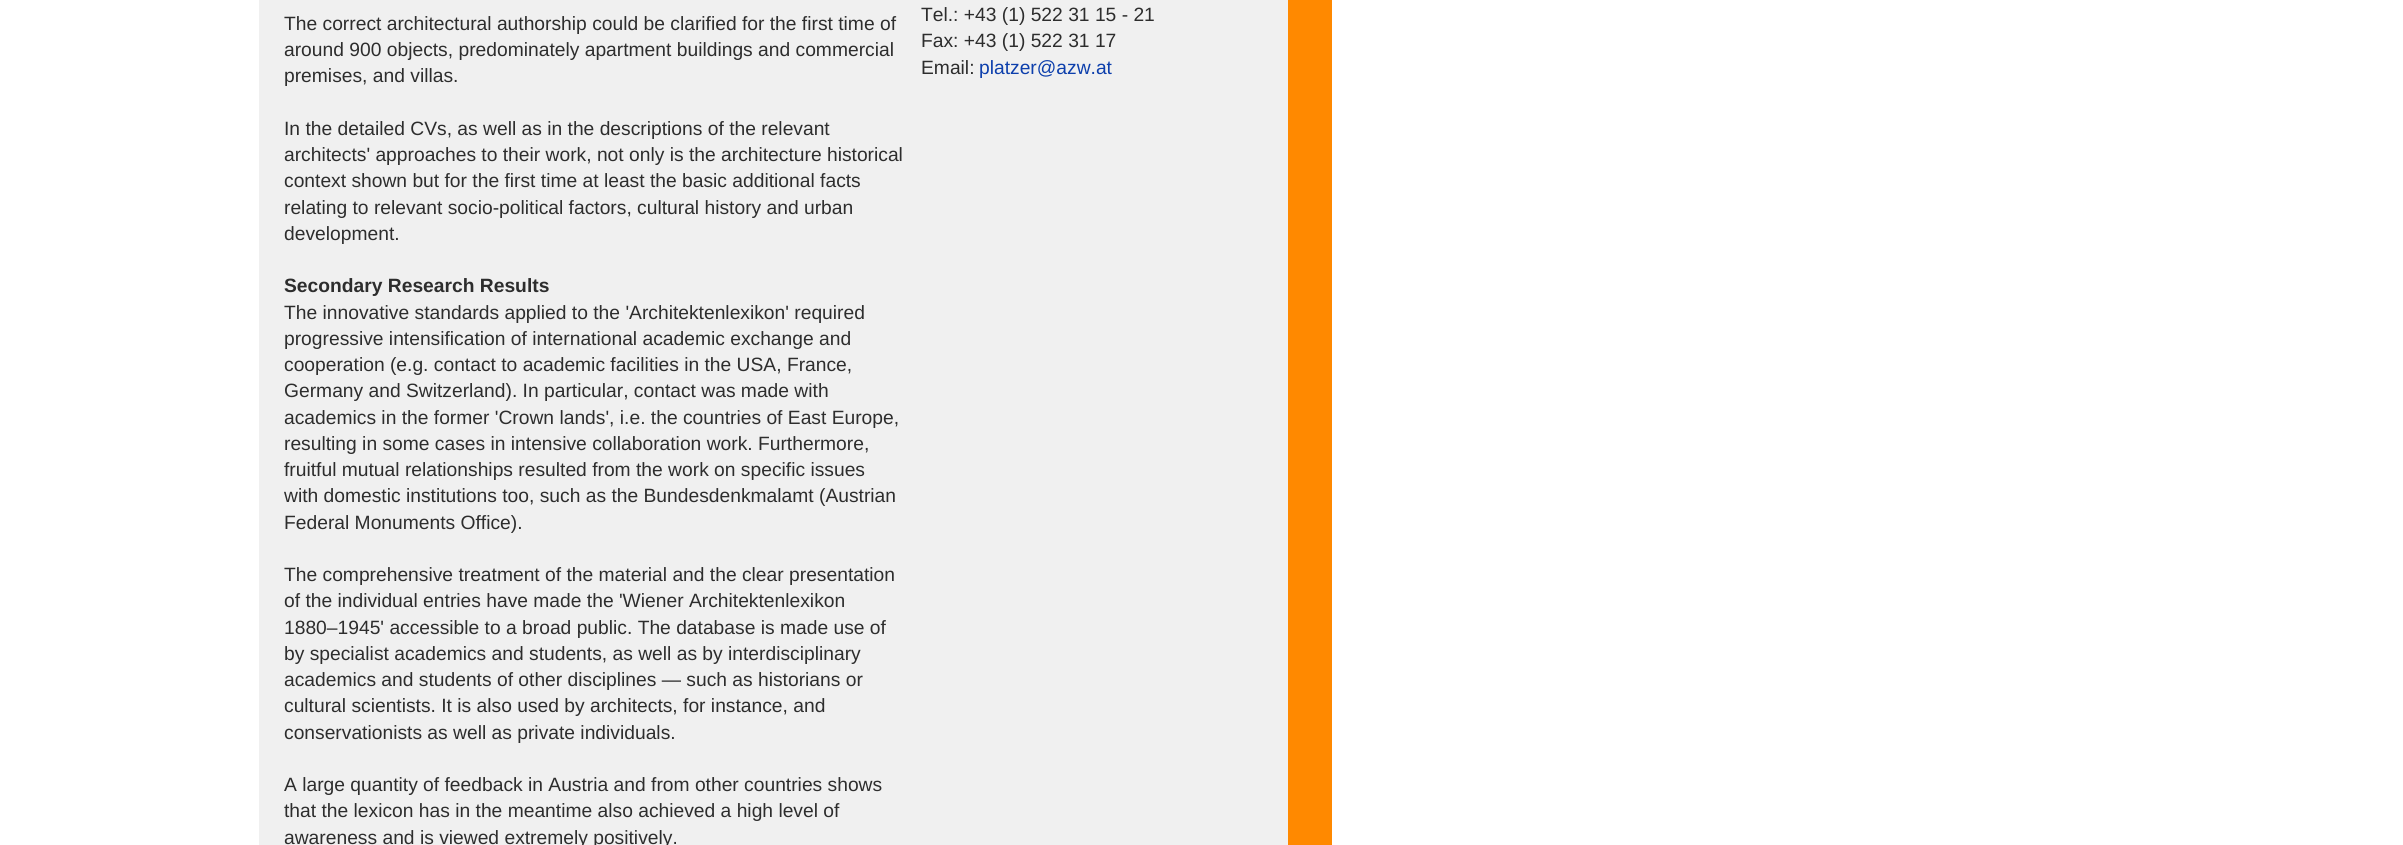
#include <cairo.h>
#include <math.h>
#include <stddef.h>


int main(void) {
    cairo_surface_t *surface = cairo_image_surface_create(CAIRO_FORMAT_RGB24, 2403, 845);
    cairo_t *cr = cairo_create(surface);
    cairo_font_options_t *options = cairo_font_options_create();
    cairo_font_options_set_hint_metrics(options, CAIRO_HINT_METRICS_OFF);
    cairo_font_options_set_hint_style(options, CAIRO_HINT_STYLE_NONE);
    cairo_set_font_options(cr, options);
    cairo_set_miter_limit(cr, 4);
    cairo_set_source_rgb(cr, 1, 1, 1);
    cairo_paint(cr);
    cairo_set_source_rgb(cr, 0.941, 0.941, 0.941);
    cairo_rectangle(cr, 259, 0, 1029, 845);
    cairo_fill(cr);
    cairo_select_font_face(cr, "Liberation Sans", CAIRO_FONT_SLANT_NORMAL, CAIRO_FONT_WEIGHT_NORMAL);
    cairo_set_font_size(cr, 19.25);
    cairo_set_source_rgb(cr, 0.176, 0.176, 0.176);
    cairo_move_to(cr, 284, 30);
    cairo_show_text(cr, "The correct architectural authorship could be clarified for the first time of");
    cairo_move_to(cr, 284, 56);
    cairo_show_text(cr, "around 900 objects, predominately apartment buildings and commercial");
    cairo_move_to(cr, 284, 82);
    cairo_show_text(cr, "premises, and villas.");
    cairo_move_to(cr, 284, 135);
    cairo_show_text(cr, "In the detailed CVs, as well as in the descriptions of the relevant");
    cairo_move_to(cr, 284, 161);
    cairo_show_text(cr, "architects' approaches to their work, not only is the architecture historical");
    cairo_move_to(cr, 284, 187);
    cairo_show_text(cr, "context shown but for the first time at least the basic additional facts");
    cairo_move_to(cr, 284, 214);
    cairo_show_text(cr, "relating to relevant socio-political factors, cultural history and urban");
    cairo_move_to(cr, 284, 240);
    cairo_show_text(cr, "development.");
    cairo_select_font_face(cr, "Liberation Sans", CAIRO_FONT_SLANT_NORMAL, CAIRO_FONT_WEIGHT_BOLD);
    cairo_move_to(cr, 284, 292);
    cairo_show_text(cr, "Secondary Research Results");
    cairo_select_font_face(cr, "Liberation Sans", CAIRO_FONT_SLANT_NORMAL, CAIRO_FONT_WEIGHT_NORMAL);
    cairo_move_to(cr, 284, 319);
    cairo_show_text(cr, "The innovative standards applied to the 'Architektenlexikon' required");
    cairo_move_to(cr, 284, 345);
    cairo_show_text(cr, "progressive intensification of international academic exchange and");
    cairo_move_to(cr, 284, 371);
    cairo_show_text(cr, "cooperation (e.g. contact to academic facilities in the USA, France,");
    cairo_move_to(cr, 284, 397);
    cairo_show_text(cr, "Germany and Switzerland). In particular, contact was made with");
    cairo_move_to(cr, 284, 424);
    cairo_show_text(cr, "academics in the former 'Crown lands', i.e. the countries of East Europe,");
    cairo_move_to(cr, 284, 450);
    cairo_show_text(cr, "resulting in some cases in intensive collaboration work. Furthermore,");
    cairo_move_to(cr, 284, 476);
    cairo_show_text(cr, "fruitful mutual relationships resulted from the work on specific issues");
    cairo_move_to(cr, 284, 502);
    cairo_show_text(cr, "with domestic institutions too, such as the Bundesdenkmalamt (Austrian");
    cairo_move_to(cr, 284, 529);
    cairo_show_text(cr, "Federal Monuments Office).");
    cairo_move_to(cr, 284, 581);
    cairo_show_text(cr, "The comprehensive treatment of the material and the clear presentation");
    cairo_move_to(cr, 284, 607);
    cairo_show_text(cr, "of the individual entries have made the 'Wiener Architektenlexikon");
    cairo_move_to(cr, 284, 634);
    cairo_show_text(cr, "1880–1945' accessible to a broad public. The database is made use of");
    cairo_move_to(cr, 284, 660);
    cairo_show_text(cr, "by specialist academics and students, as well as by interdisciplinary");
    cairo_move_to(cr, 284, 686);
    cairo_show_text(cr, "academics and students of other disciplines — such as historians or");
    cairo_move_to(cr, 284, 712);
    cairo_show_text(cr, "cultural scientists. It is also used by architects, for instance, and");
    cairo_move_to(cr, 284, 739);
    cairo_show_text(cr, "conservationists as well as private individuals.");
    cairo_move_to(cr, 284, 791);
    cairo_show_text(cr, "A large quantity of feedback in Austria and from other countries shows");
    cairo_move_to(cr, 284, 817);
    cairo_show_text(cr, "that the lexicon has in the meantime also achieved a high level of");
    cairo_move_to(cr, 284, 844);
    cairo_show_text(cr, "awareness and is viewed extremely positively.");
    cairo_move_to(cr, 921, 21);
    cairo_show_text(cr, "Tel.: +43 (1) 522 31 15 - 21");
    cairo_move_to(cr, 921, 47);
    cairo_show_text(cr, "Fax: +43 (1) 522 31 17");
    cairo_move_to(cr, 921, 74);
    cairo_show_text(cr, "Email:");
    cairo_set_source_rgb(cr, 0.051, 0.247, 0.675);
    cairo_move_to(cr, 979, 74);
    cairo_show_text(cr, "platzer@azw.at");
    cairo_set_source_rgb(cr, 1, 0.537, 0);
    cairo_rectangle(cr, 1288, 0, 44, 845);
    cairo_fill(cr);
    cairo_surface_write_to_png(surface, "page.png");
    cairo_font_options_destroy(options);
    cairo_destroy(cr);
    cairo_surface_destroy(surface);
    return 0;
}
